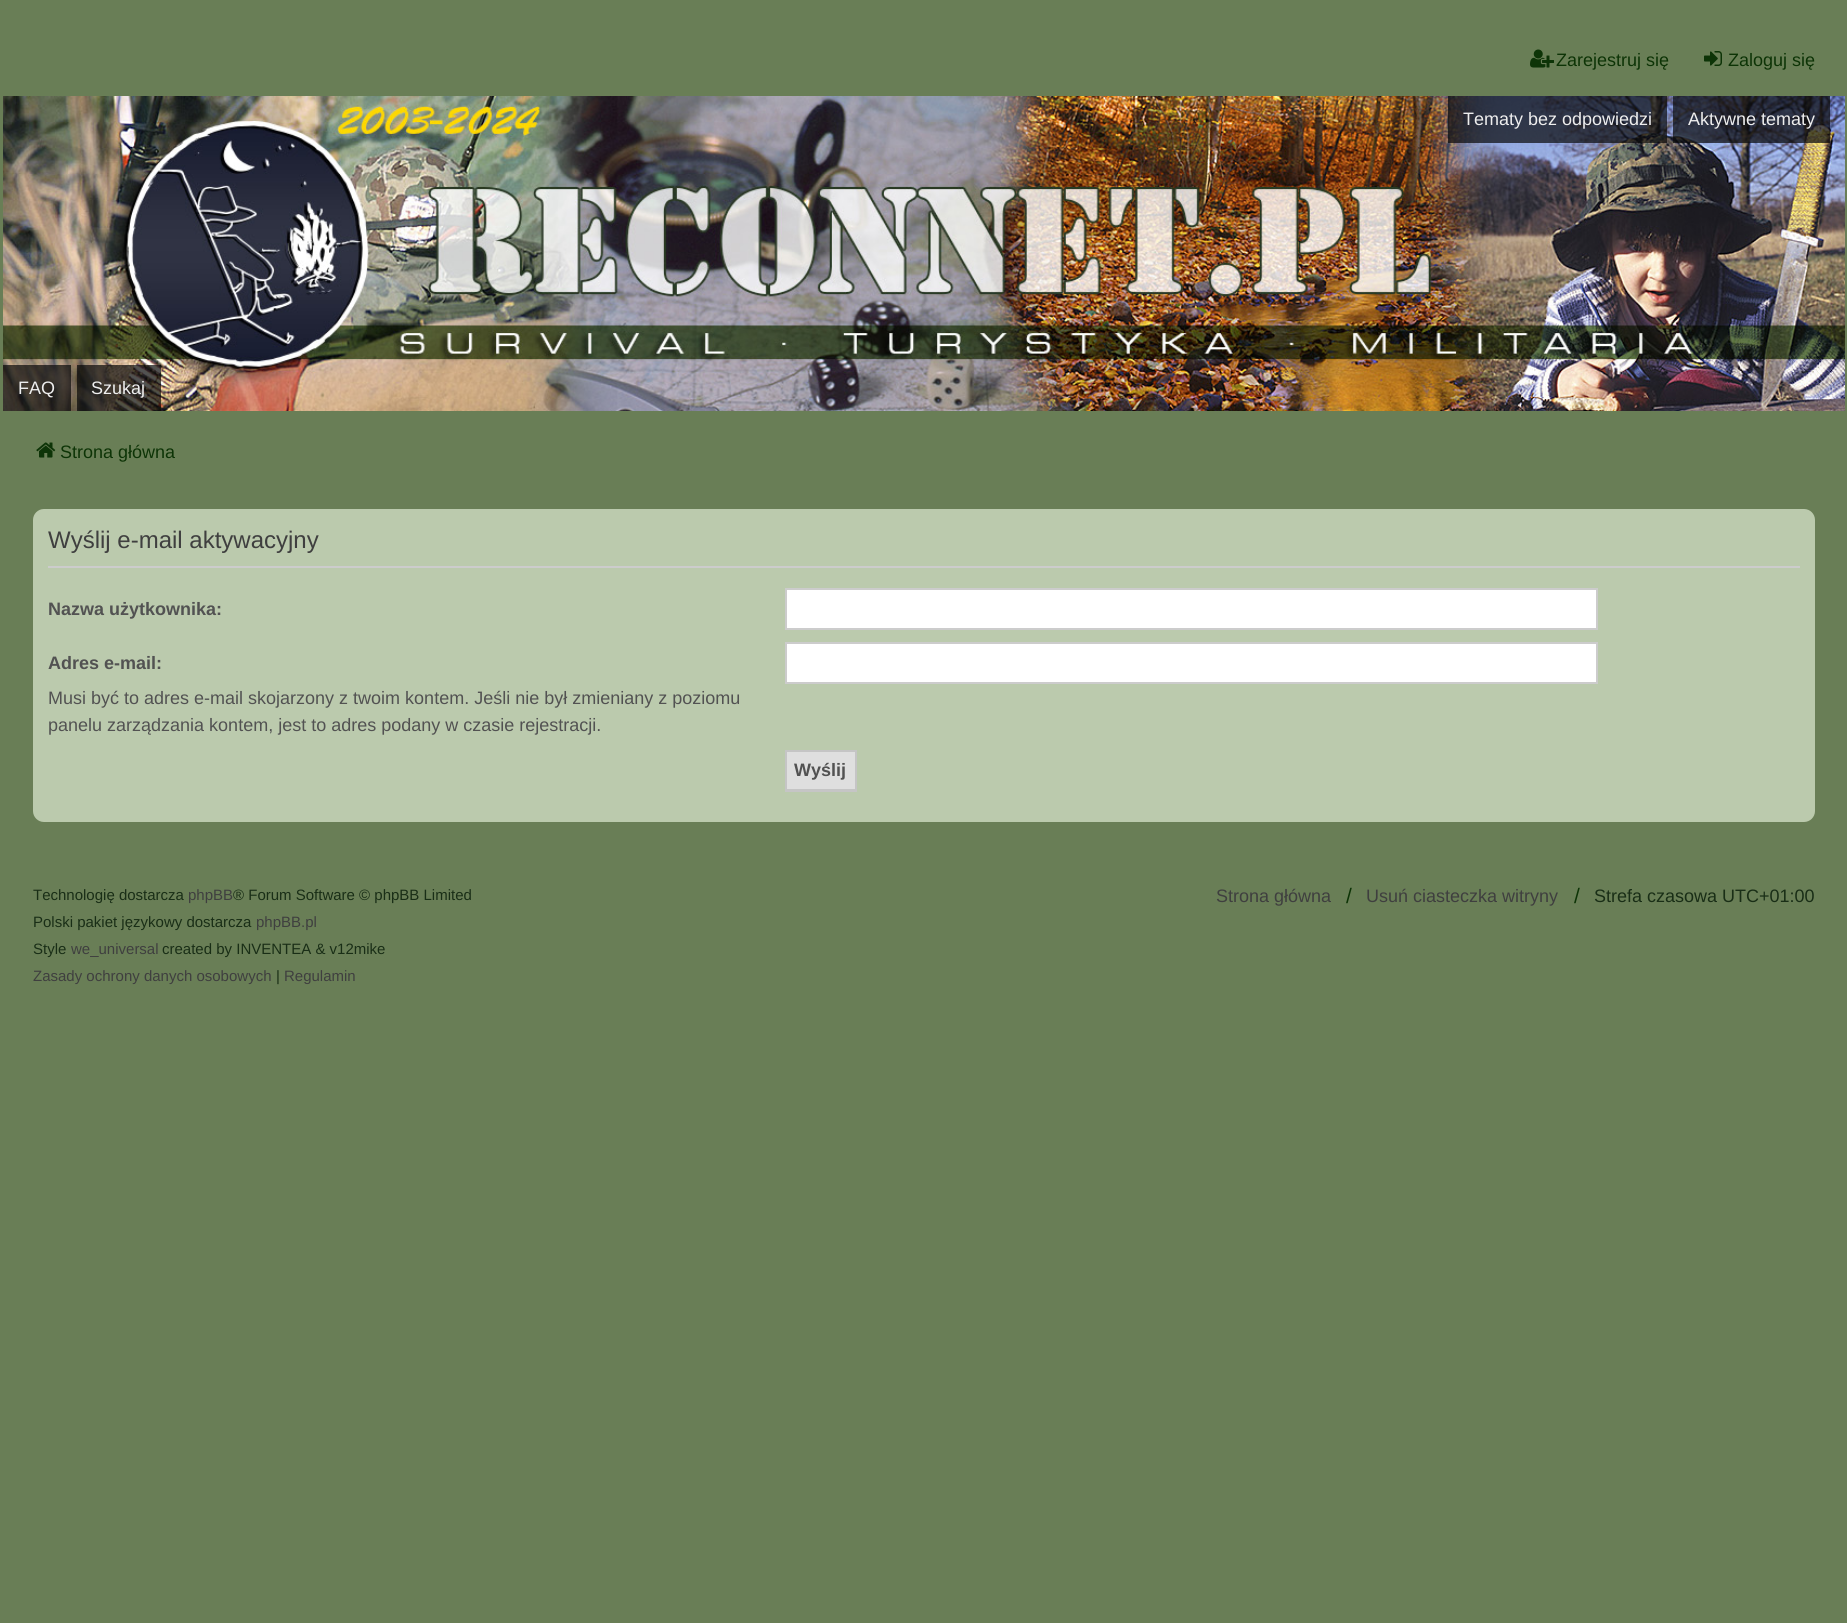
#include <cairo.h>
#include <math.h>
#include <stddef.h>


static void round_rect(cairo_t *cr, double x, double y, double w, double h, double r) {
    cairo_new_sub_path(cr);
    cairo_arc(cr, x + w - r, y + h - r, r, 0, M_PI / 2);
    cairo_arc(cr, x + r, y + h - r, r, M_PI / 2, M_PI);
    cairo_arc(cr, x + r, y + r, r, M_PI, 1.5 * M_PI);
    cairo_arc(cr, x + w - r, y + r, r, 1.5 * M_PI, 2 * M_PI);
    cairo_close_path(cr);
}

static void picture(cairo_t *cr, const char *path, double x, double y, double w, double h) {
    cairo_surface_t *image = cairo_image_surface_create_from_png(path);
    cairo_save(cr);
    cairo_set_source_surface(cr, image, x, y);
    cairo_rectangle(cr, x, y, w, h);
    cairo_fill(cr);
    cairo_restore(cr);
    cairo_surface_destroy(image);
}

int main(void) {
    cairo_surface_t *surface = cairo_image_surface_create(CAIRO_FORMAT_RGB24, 1847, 1623);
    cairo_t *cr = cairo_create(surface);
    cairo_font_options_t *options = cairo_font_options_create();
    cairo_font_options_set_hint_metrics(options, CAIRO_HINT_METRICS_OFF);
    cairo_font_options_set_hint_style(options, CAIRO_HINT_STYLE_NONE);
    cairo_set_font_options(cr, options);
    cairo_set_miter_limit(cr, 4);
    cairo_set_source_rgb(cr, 0.412, 0.494, 0.337);
    cairo_paint(cr);
    picture(cr, "img1.png", 1530, 49, 24, 19);
    cairo_select_font_face(cr, "Liberation Sans", CAIRO_FONT_SLANT_NORMAL, CAIRO_FONT_WEIGHT_NORMAL);
    cairo_set_font_size(cr, 18);
    cairo_set_source_rgb(cr, 0.051, 0.204, 0.027);
    cairo_move_to(cr, 1556, 66);
    cairo_show_text(cr, "Zarejestruj się");
    picture(cr, "img2.png", 1704, 51, 18, 15);
    cairo_move_to(cr, 1728, 66);
    cairo_show_text(cr, "Zaloguj się");
    picture(cr, "img3.png", 3, 96, 1842, 315);
    cairo_set_source_rgba(cr, 0.039, 0.039, 0.039, 0.7);
    cairo_rectangle(cr, 1448, 96, 219, 47);
    cairo_fill(cr);
    cairo_set_source_rgb(cr, 0.933, 0.933, 0.933);
    cairo_move_to(cr, 1463, 125);
    cairo_show_text(cr, "Tematy bez odpowiedzi");
    cairo_set_source_rgba(cr, 0.039, 0.039, 0.039, 0.7);
    cairo_rectangle(cr, 1673, 96, 157, 47);
    cairo_fill(cr);
    cairo_set_source_rgb(cr, 0.933, 0.933, 0.933);
    cairo_move_to(cr, 1688, 125);
    cairo_show_text(cr, "Aktywne tematy");
    cairo_set_source_rgba(cr, 0.039, 0.039, 0.039, 0.7);
    cairo_rectangle(cr, 3, 365, 68, 46);
    cairo_fill(cr);
    cairo_set_source_rgb(cr, 0.933, 0.933, 0.933);
    cairo_move_to(cr, 18, 394);
    cairo_show_text(cr, "FAQ");
    cairo_set_source_rgba(cr, 0.039, 0.039, 0.039, 0.7);
    cairo_rectangle(cr, 77, 365, 84, 46);
    cairo_fill(cr);
    cairo_set_source_rgb(cr, 0.933, 0.933, 0.933);
    cairo_move_to(cr, 91, 394);
    cairo_show_text(cr, "Szukaj");
    picture(cr, "img4.png", 36, 442, 20, 16);
    cairo_set_source_rgb(cr, 0.051, 0.204, 0.027);
    cairo_move_to(cr, 60, 458);
    cairo_show_text(cr, "Strona główna");
    cairo_set_source_rgb(cr, 0.733, 0.792, 0.678);
    round_rect(cr, 33, 509, 1782, 313, 11);
    cairo_fill(cr);
    cairo_set_source_rgb(cr, 0.8, 0.8, 0.8);
    cairo_rectangle(cr, 48, 566, 1752, 2);
    cairo_fill(cr);
    cairo_set_font_size(cr, 24);
    cairo_set_source_rgb(cr, 0.247, 0.247, 0.247);
    cairo_move_to(cr, 48, 548);
    cairo_show_text(cr, "Wyślij e-mail aktywacyjny");
    cairo_select_font_face(cr, "Liberation Sans", CAIRO_FONT_SLANT_NORMAL, CAIRO_FONT_WEIGHT_BOLD);
    cairo_set_font_size(cr, 18);
    cairo_set_source_rgb(cr, 0.322, 0.322, 0.322);
    cairo_move_to(cr, 48, 615);
    cairo_show_text(cr, "Nazwa użytkownika:");
    cairo_set_source_rgb(cr, 1, 1, 1);
    cairo_rectangle(cr, 786, 589, 811, 40);
    cairo_fill_preserve(cr);
    cairo_set_source_rgb(cr, 0.8, 0.8, 0.8);
    cairo_stroke(cr);
    cairo_set_source_rgb(cr, 0.322, 0.322, 0.322);
    cairo_move_to(cr, 48, 669);
    cairo_show_text(cr, "Adres e-mail:");
    cairo_select_font_face(cr, "Liberation Sans", CAIRO_FONT_SLANT_NORMAL, CAIRO_FONT_WEIGHT_NORMAL);
    cairo_move_to(cr, 48, 704);
    cairo_show_text(cr, "Musi być to adres e-mail skojarzony z twoim kontem. Jeśli nie był zmieniany z poziomu");
    cairo_move_to(cr, 48, 731);
    cairo_show_text(cr, "panelu zarządzania kontem, jest to adres podany w czasie rejestracji.");
    cairo_set_source_rgb(cr, 1, 1, 1);
    cairo_rectangle(cr, 786, 643, 811, 40);
    cairo_fill_preserve(cr);
    cairo_set_source_rgb(cr, 0.8, 0.8, 0.8);
    cairo_stroke(cr);
    cairo_set_source_rgb(cr, 0.875, 0.875, 0.875);
    cairo_rectangle(cr, 787, 752, 68, 37);
    cairo_fill(cr);
    cairo_set_source_rgb(cr, 0.773, 0.773, 0.773);
    cairo_rectangle(cr, 785, 750, 72, 2);
    cairo_fill(cr);
    cairo_rectangle(cr, 855, 750, 2, 42);
    cairo_fill(cr);
    cairo_rectangle(cr, 785, 789, 72, 3);
    cairo_fill(cr);
    cairo_rectangle(cr, 785, 750, 2, 42);
    cairo_fill(cr);
    cairo_select_font_face(cr, "Liberation Sans", CAIRO_FONT_SLANT_NORMAL, CAIRO_FONT_WEIGHT_BOLD);
    cairo_set_source_rgb(cr, 0.322, 0.322, 0.322);
    cairo_move_to(cr, 794, 776);
    cairo_show_text(cr, "Wyślij");
    cairo_select_font_face(cr, "Liberation Sans", CAIRO_FONT_SLANT_NORMAL, CAIRO_FONT_WEIGHT_NORMAL);
    cairo_set_font_size(cr, 15);
    cairo_set_source_rgb(cr, 0.098, 0.18, 0.086);
    cairo_move_to(cr, 33, 900);
    cairo_show_text(cr, "Technologię dostarcza");
    cairo_set_source_rgb(cr, 0.247, 0.247, 0.247);
    cairo_move_to(cr, 188, 900);
    cairo_show_text(cr, "phpBB");
    cairo_set_source_rgb(cr, 0.098, 0.18, 0.086);
    cairo_move_to(cr, 233, 900);
    cairo_show_text(cr, "® Forum Software © phpBB Limited");
    cairo_move_to(cr, 33, 927);
    cairo_show_text(cr, "Polski pakiet językowy dostarcza");
    cairo_set_source_rgb(cr, 0.247, 0.247, 0.247);
    cairo_move_to(cr, 256, 927);
    cairo_show_text(cr, "phpBB.pl");
    cairo_set_source_rgb(cr, 0.098, 0.18, 0.086);
    cairo_move_to(cr, 33, 954);
    cairo_show_text(cr, "Style");
    cairo_set_source_rgb(cr, 0.247, 0.247, 0.247);
    cairo_move_to(cr, 71, 954);
    cairo_show_text(cr, "we_universal");
    cairo_set_source_rgb(cr, 0.098, 0.18, 0.086);
    cairo_move_to(cr, 162, 954);
    cairo_show_text(cr, "created by INVENTEA & v12mike");
    cairo_set_source_rgb(cr, 0.247, 0.247, 0.247);
    cairo_move_to(cr, 33, 981);
    cairo_show_text(cr, "Zasady ochrony danych osobowych");
    cairo_set_source_rgb(cr, 0.098, 0.18, 0.086);
    cairo_move_to(cr, 276, 981);
    cairo_show_text(cr, "|");
    cairo_set_source_rgb(cr, 0.247, 0.247, 0.247);
    cairo_move_to(cr, 284, 981);
    cairo_show_text(cr, "Regulamin");
    cairo_set_font_size(cr, 18);
    cairo_move_to(cr, 1216, 902);
    cairo_show_text(cr, "Strona główna");
    cairo_set_font_size(cr, 21);
    cairo_set_source_rgb(cr, 0.051, 0.204, 0.027);
    cairo_move_to(cr, 1346, 903);
    cairo_show_text(cr, "/");
    cairo_set_font_size(cr, 18);
    cairo_set_source_rgb(cr, 0.247, 0.247, 0.247);
    cairo_move_to(cr, 1366, 902);
    cairo_show_text(cr, "Usuń ciasteczka witryny");
    cairo_set_font_size(cr, 21);
    cairo_set_source_rgb(cr, 0.051, 0.204, 0.027);
    cairo_move_to(cr, 1574, 903);
    cairo_show_text(cr, "/");
    cairo_set_font_size(cr, 18);
    cairo_set_source_rgb(cr, 0.098, 0.18, 0.086);
    cairo_move_to(cr, 1594, 902);
    cairo_show_text(cr, "Strefa czasowa UTC+01:00");
    cairo_surface_write_to_png(surface, "page.png");
    cairo_font_options_destroy(options);
    cairo_destroy(cr);
    cairo_surface_destroy(surface);
    return 0;
}
